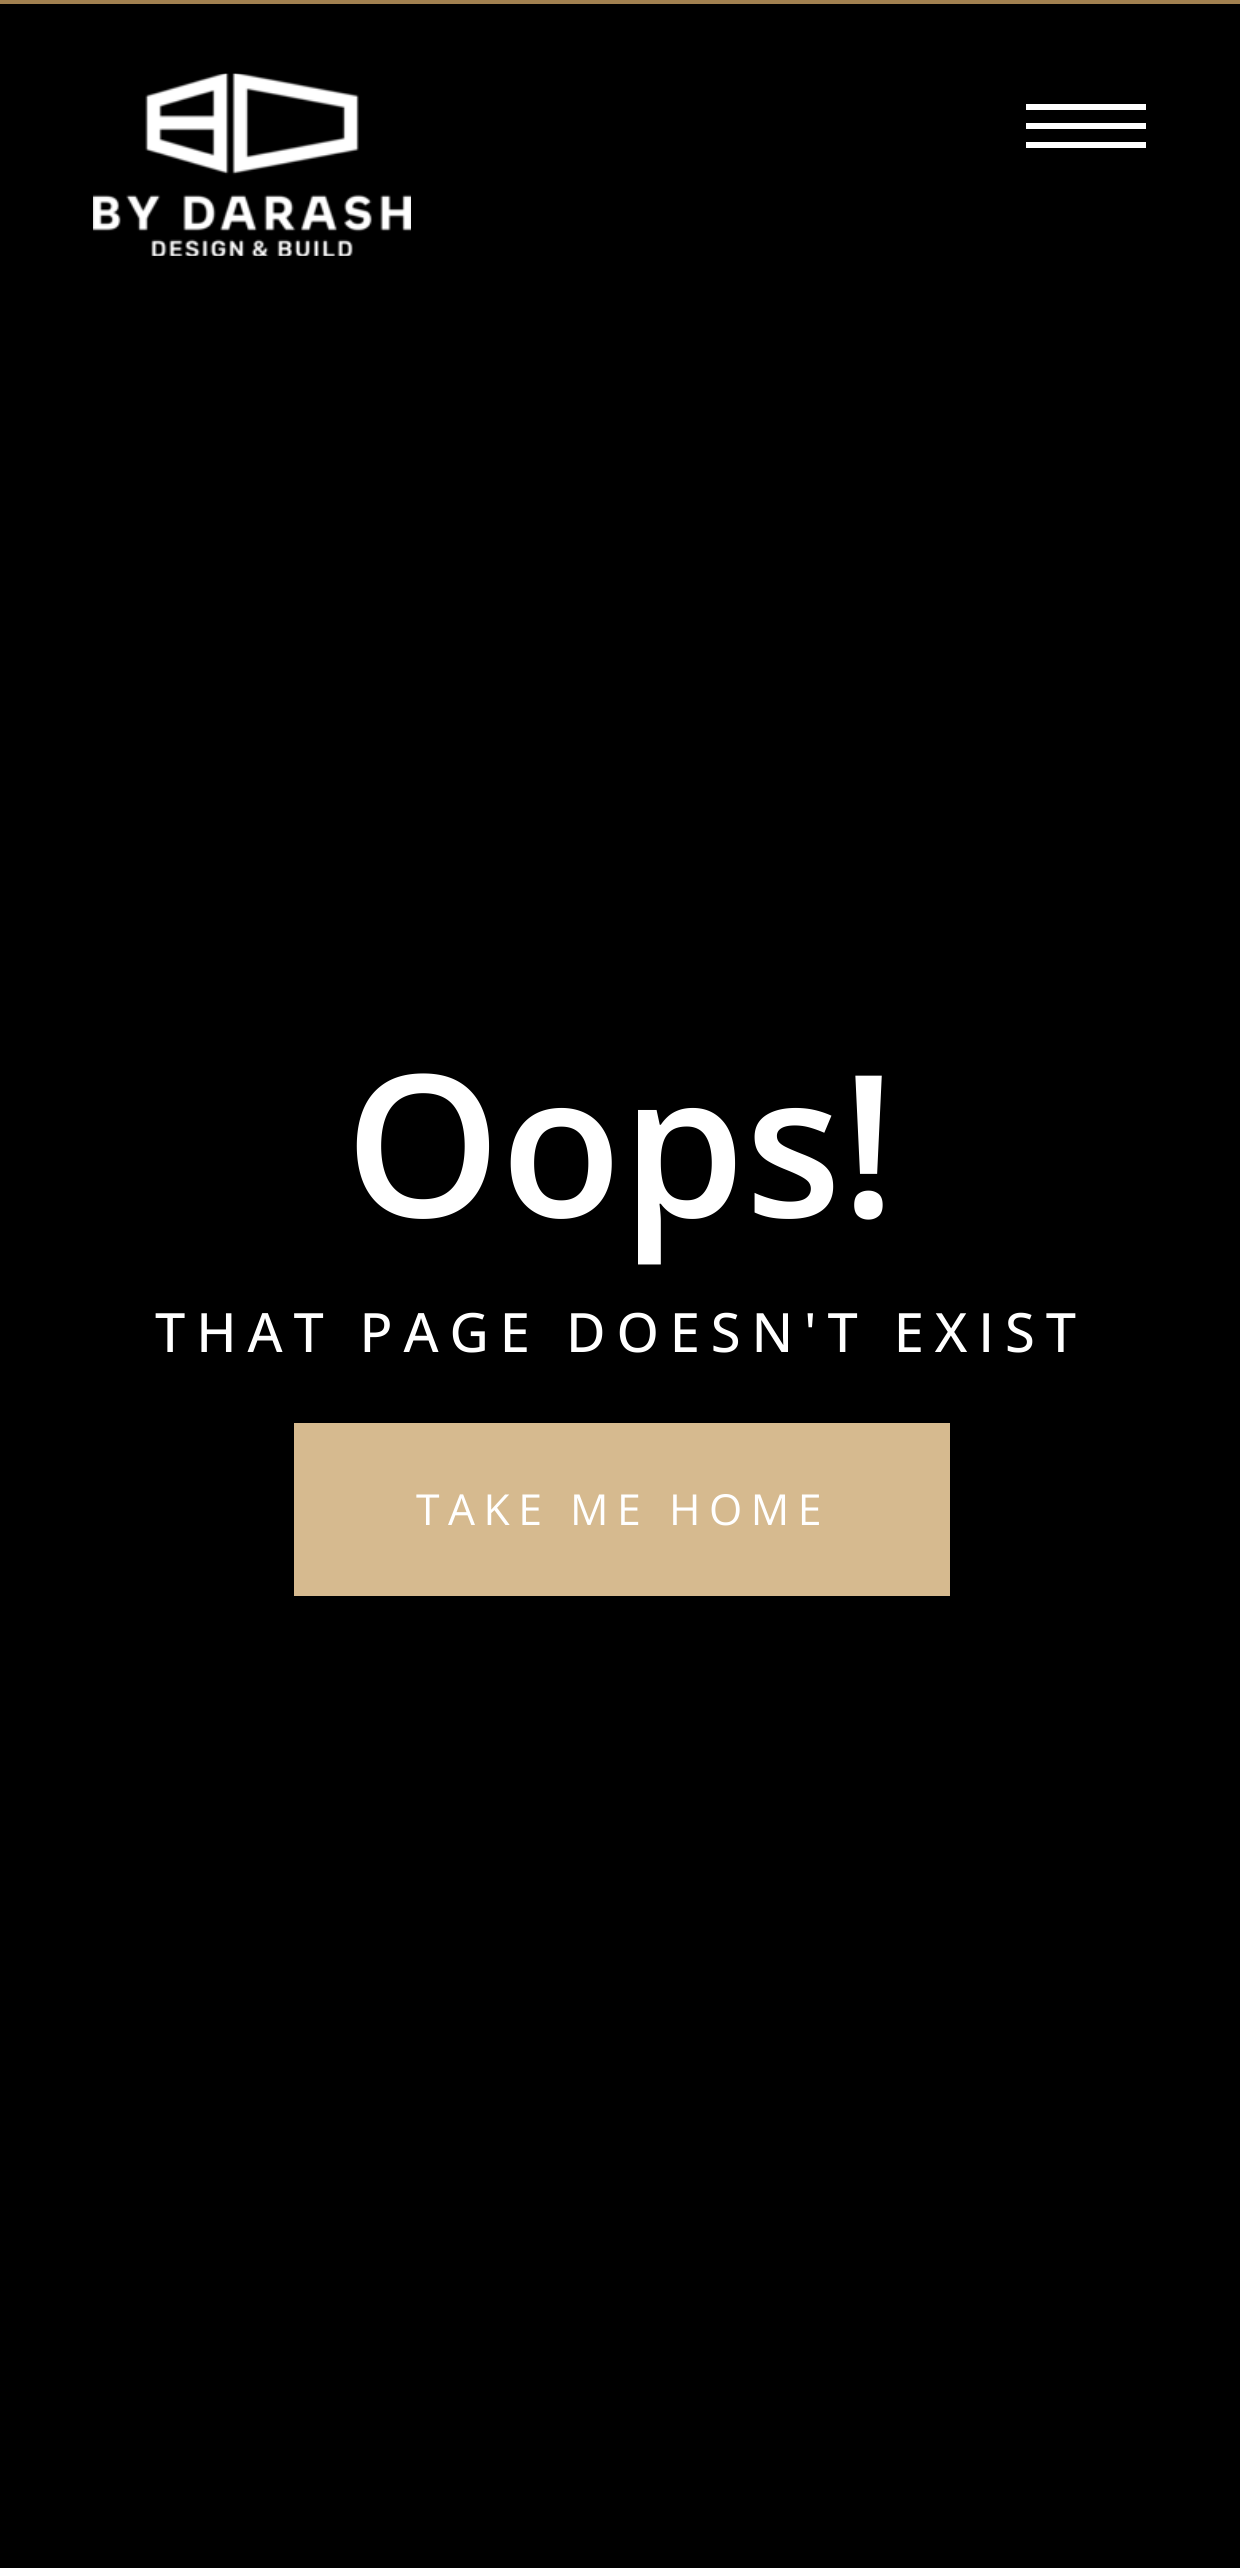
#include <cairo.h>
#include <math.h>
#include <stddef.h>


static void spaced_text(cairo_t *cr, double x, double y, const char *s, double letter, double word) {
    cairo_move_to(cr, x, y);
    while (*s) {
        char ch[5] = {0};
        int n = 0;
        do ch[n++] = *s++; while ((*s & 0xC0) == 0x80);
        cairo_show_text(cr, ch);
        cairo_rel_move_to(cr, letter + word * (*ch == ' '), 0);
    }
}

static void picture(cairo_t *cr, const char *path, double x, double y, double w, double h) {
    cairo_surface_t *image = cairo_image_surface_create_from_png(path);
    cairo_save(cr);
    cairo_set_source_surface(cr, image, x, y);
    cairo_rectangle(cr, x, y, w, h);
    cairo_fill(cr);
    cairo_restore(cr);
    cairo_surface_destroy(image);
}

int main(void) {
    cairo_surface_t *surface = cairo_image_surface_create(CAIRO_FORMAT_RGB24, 1240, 2568);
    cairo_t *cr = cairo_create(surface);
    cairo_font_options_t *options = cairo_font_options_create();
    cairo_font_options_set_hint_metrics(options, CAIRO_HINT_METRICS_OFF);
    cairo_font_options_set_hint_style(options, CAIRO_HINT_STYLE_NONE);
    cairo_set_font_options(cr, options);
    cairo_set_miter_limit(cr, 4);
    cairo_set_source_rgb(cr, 0.631, 0.502, 0.31);
    cairo_paint(cr);
    cairo_set_source_rgb(cr, 0, 0, 0);
    cairo_rectangle(cr, 0, 4, 1240, 2564);
    cairo_fill(cr);
    picture(cr, "img1.png", 93, 73, 318, 183);
    cairo_set_source_rgb(cr, 1, 1, 1);
    cairo_new_path(cr);
    cairo_move_to(cr, 1026, 142);
    cairo_line_to(cr, 1146, 142);
    cairo_line_to(cr, 1146, 148);
    cairo_line_to(cr, 1026, 148);
    cairo_close_path(cr);
    cairo_move_to(cr, 1026, 123);
    cairo_line_to(cr, 1146, 123);
    cairo_line_to(cr, 1146, 129);
    cairo_line_to(cr, 1026, 129);
    cairo_close_path(cr);
    cairo_move_to(cr, 1026, 104);
    cairo_line_to(cr, 1146, 104);
    cairo_line_to(cr, 1146, 110);
    cairo_line_to(cr, 1026, 110);
    cairo_close_path(cr);
    cairo_fill(cr);
    cairo_select_font_face(cr, "Open Sans SemiBold", CAIRO_FONT_SLANT_NORMAL, CAIRO_FONT_WEIGHT_NORMAL);
    cairo_set_font_size(cr, 198);
    cairo_move_to(cr, 345, 1217);
    cairo_show_text(cr, "Oops!");
    cairo_select_font_face(cr, "Open Sans Medium", CAIRO_FONT_SLANT_NORMAL, CAIRO_FONT_WEIGHT_NORMAL);
    cairo_set_font_size(cr, 54.25);
    spaced_text(cr, 155, 1352, "THAT PAGE DOESN'T EXIST", 10.9, 0);
    cairo_set_source_rgb(cr, 0.839, 0.729, 0.561);
    cairo_rectangle(cr, 294, 1423, 656, 173);
    cairo_fill(cr);
    cairo_select_font_face(cr, "Open Sans", CAIRO_FONT_SLANT_NORMAL, CAIRO_FONT_WEIGHT_NORMAL);
    cairo_set_font_size(cr, 42.75);
    cairo_set_source_rgb(cr, 1, 1, 1);
    spaced_text(cr, 416, 1525, "TAKE ME HOME", 8.5, 0);
    cairo_surface_write_to_png(surface, "page.png");
    cairo_font_options_destroy(options);
    cairo_destroy(cr);
    cairo_surface_destroy(surface);
    return 0;
}
